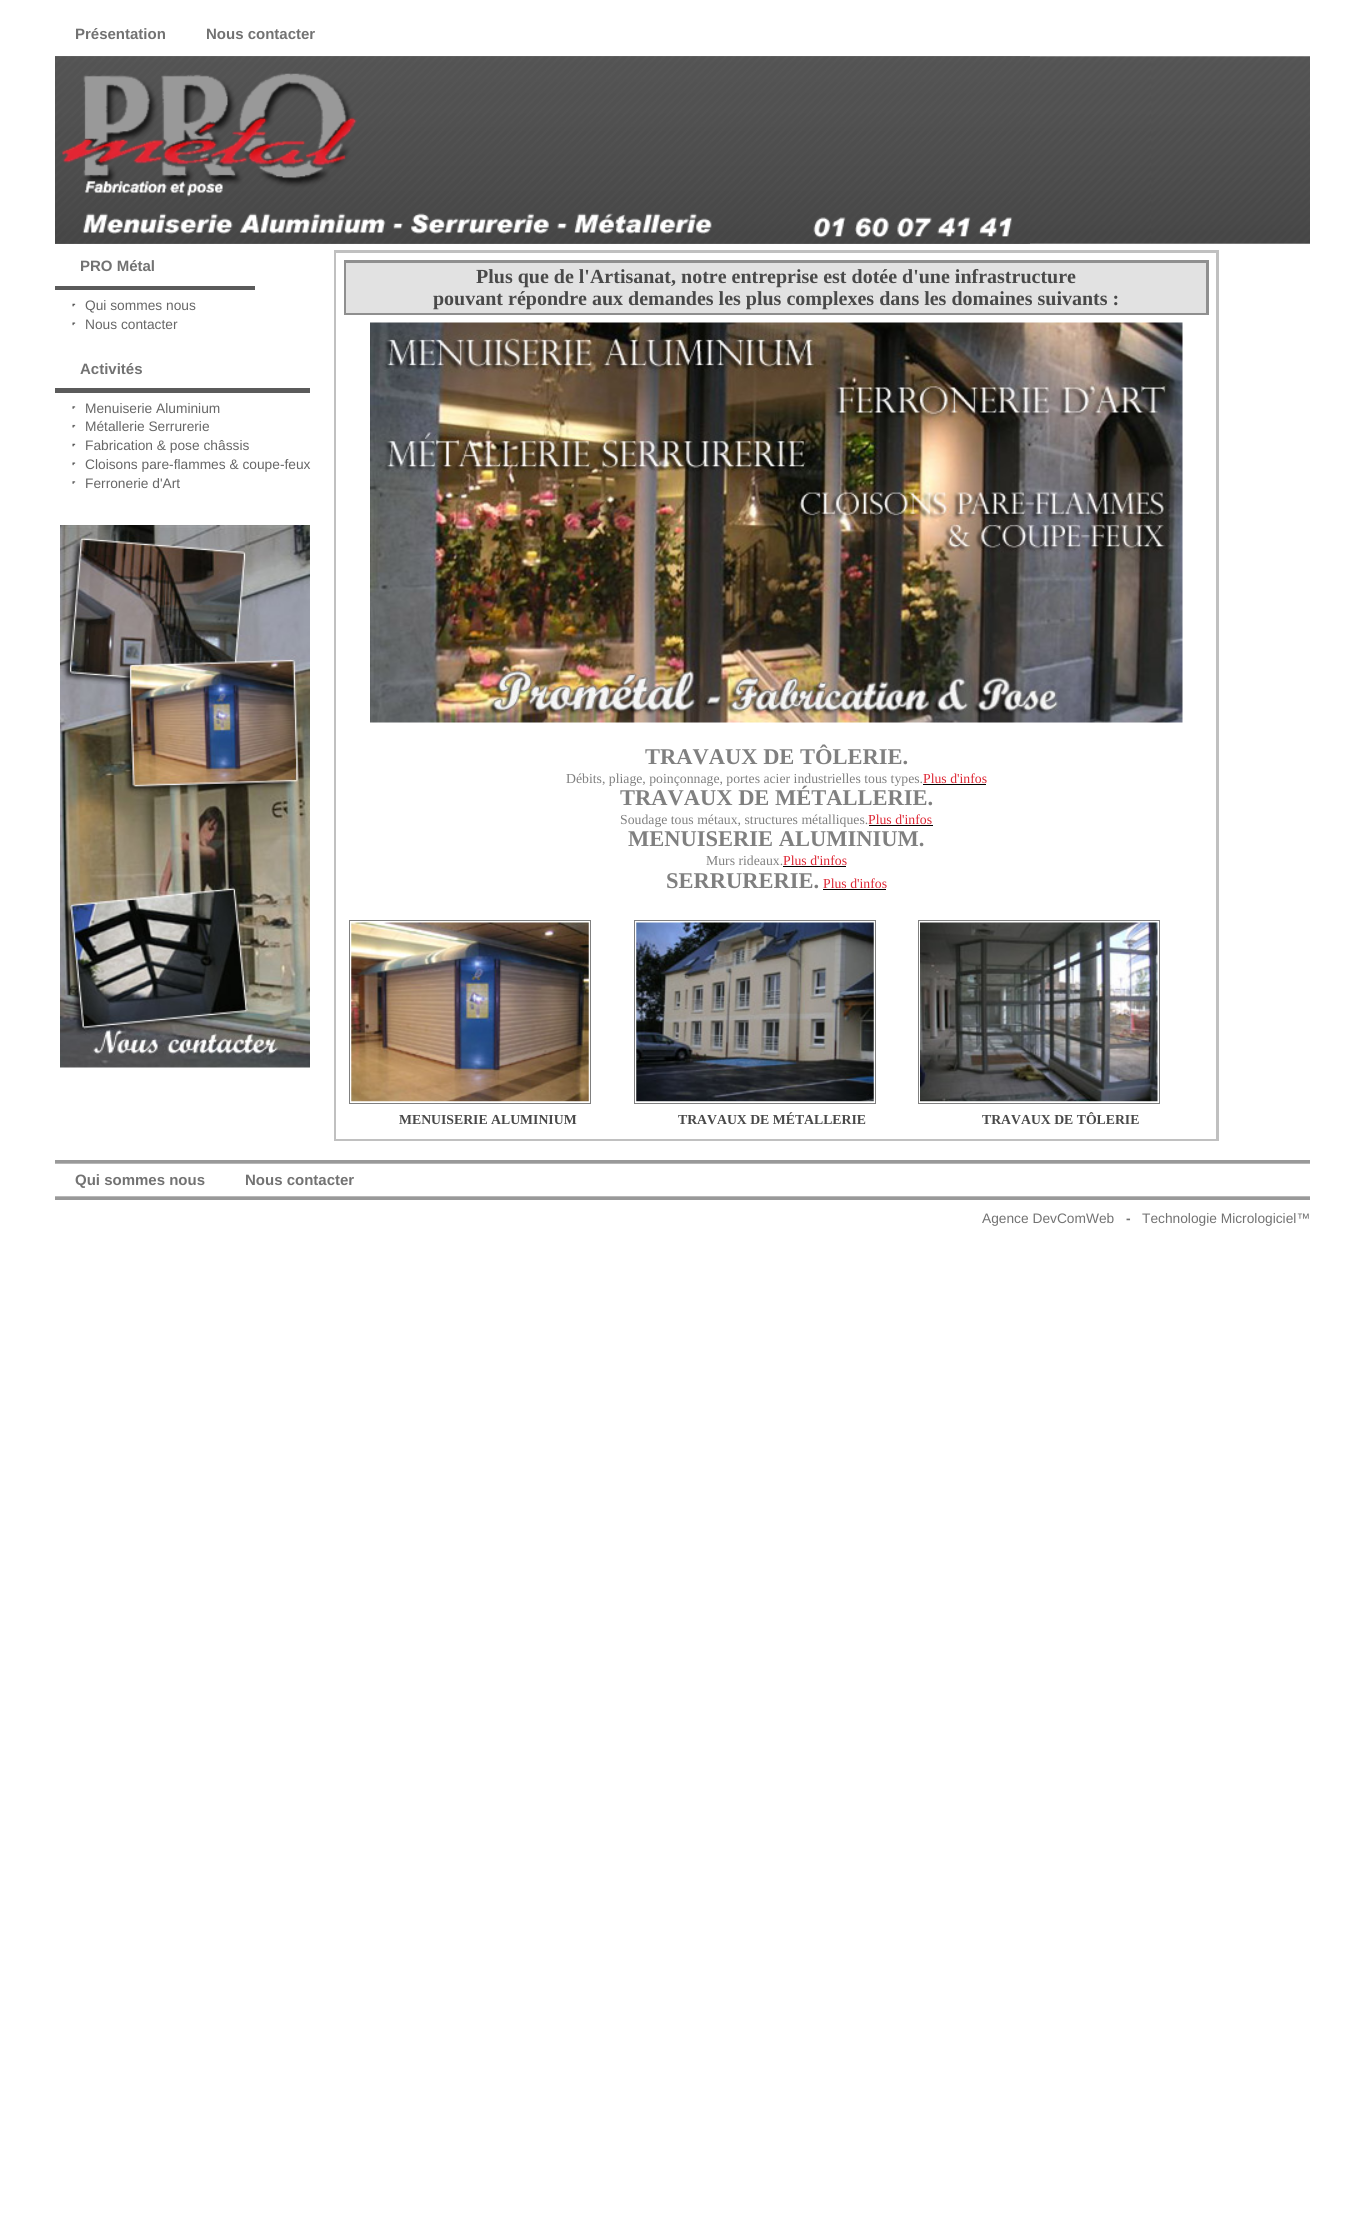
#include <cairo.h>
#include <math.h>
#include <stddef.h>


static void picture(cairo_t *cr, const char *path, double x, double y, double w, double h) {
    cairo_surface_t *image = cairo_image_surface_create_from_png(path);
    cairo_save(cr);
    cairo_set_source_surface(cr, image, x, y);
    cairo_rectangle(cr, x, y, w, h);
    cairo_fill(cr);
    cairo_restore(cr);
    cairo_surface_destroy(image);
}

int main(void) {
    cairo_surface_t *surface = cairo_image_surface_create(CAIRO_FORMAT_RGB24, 1365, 2217);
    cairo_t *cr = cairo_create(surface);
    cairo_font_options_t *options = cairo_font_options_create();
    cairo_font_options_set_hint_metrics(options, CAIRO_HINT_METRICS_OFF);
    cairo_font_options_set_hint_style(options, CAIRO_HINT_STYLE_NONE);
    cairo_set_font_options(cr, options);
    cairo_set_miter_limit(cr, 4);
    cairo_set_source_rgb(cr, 1, 1, 1);
    cairo_paint(cr);
    cairo_select_font_face(cr, "Liberation Sans", CAIRO_FONT_SLANT_NORMAL, CAIRO_FONT_WEIGHT_BOLD);
    cairo_set_font_size(cr, 15);
    cairo_set_source_rgb(cr, 0.447, 0.447, 0.447);
    cairo_move_to(cr, 75, 39);
    cairo_show_text(cr, "Présentation");
    cairo_move_to(cr, 206, 39);
    cairo_show_text(cr, "Nous contacter");
    picture(cr, "img1.png", 55, 56, 1255, 188);
    picture(cr, "img2.png", 55, 56, 975, 188);
    cairo_set_source_rgb(cr, 0.357, 0.357, 0.357);
    cairo_rectangle(cr, 55, 286, 200, 4);
    cairo_fill(cr);
    cairo_set_source_rgb(cr, 0.447, 0.447, 0.447);
    cairo_move_to(cr, 80, 271);
    cairo_show_text(cr, "PRO Métal");
    picture(cr, "img3.png", 72, 303, 4, 4);
    cairo_select_font_face(cr, "Liberation Sans", CAIRO_FONT_SLANT_NORMAL, CAIRO_FONT_WEIGHT_NORMAL);
    cairo_set_font_size(cr, 13.75);
    cairo_set_source_rgb(cr, 0.4, 0.4, 0.4);
    cairo_move_to(cr, 85, 310);
    cairo_show_text(cr, "Qui sommes nous");
    picture(cr, "img4.png", 72, 322, 4, 4);
    cairo_move_to(cr, 85, 329);
    cairo_show_text(cr, "Nous contacter");
    cairo_set_source_rgb(cr, 0.357, 0.357, 0.357);
    cairo_rectangle(cr, 55, 388, 255, 5);
    cairo_fill(cr);
    cairo_select_font_face(cr, "Liberation Sans", CAIRO_FONT_SLANT_NORMAL, CAIRO_FONT_WEIGHT_BOLD);
    cairo_set_font_size(cr, 15);
    cairo_set_source_rgb(cr, 0.447, 0.447, 0.447);
    cairo_move_to(cr, 80, 374);
    cairo_show_text(cr, "Activités");
    picture(cr, "img5.png", 72, 406, 4, 3);
    cairo_select_font_face(cr, "Liberation Sans", CAIRO_FONT_SLANT_NORMAL, CAIRO_FONT_WEIGHT_NORMAL);
    cairo_set_font_size(cr, 13.75);
    cairo_set_source_rgb(cr, 0.4, 0.4, 0.4);
    cairo_move_to(cr, 85, 413);
    cairo_show_text(cr, "Menuiserie Aluminium");
    picture(cr, "img6.png", 72, 424, 4, 4);
    cairo_move_to(cr, 85, 431);
    cairo_show_text(cr, "Métallerie Serrurerie");
    picture(cr, "img3.png", 72, 443, 4, 4);
    cairo_move_to(cr, 85, 450);
    cairo_show_text(cr, "Fabrication & pose châssis");
    picture(cr, "img4.png", 72, 462, 4, 4);
    cairo_move_to(cr, 85, 469);
    cairo_show_text(cr, "Cloisons pare-flammes & coupe-feux");
    picture(cr, "img5.png", 72, 481, 4, 3);
    cairo_move_to(cr, 85, 488);
    cairo_show_text(cr, "Ferronerie d'Art");
    picture(cr, "img7.png", 60, 525, 250, 543);
    cairo_set_source_rgb(cr, 0.753, 0.753, 0.753);
    cairo_rectangle(cr, 334, 250, 885, 891);
    cairo_fill(cr);
    cairo_set_source_rgb(cr, 1, 1, 1);
    cairo_rectangle(cr, 336, 253, 880, 886);
    cairo_fill(cr);
    cairo_set_source_rgb(cr, 0.561, 0.561, 0.561);
    cairo_rectangle(cr, 344, 260, 865, 55);
    cairo_fill(cr);
    cairo_set_source_rgb(cr, 0.886, 0.886, 0.886);
    cairo_rectangle(cr, 346, 263, 860, 50);
    cairo_fill(cr);
    cairo_select_font_face(cr, "Liberation Serif", CAIRO_FONT_SLANT_NORMAL, CAIRO_FONT_WEIGHT_BOLD);
    cairo_set_font_size(cr, 20);
    cairo_set_source_rgb(cr, 0.286, 0.286, 0.286);
    cairo_move_to(cr, 476, 283);
    cairo_show_text(cr, "Plus que de l'Artisanat, notre entreprise est dotée d'une infrastructure");
    cairo_move_to(cr, 433, 305);
    cairo_show_text(cr, "pouvant répondre aux demandes les plus complexes dans les domaines suivants :");
    picture(cr, "img8.png", 370, 322, 813, 401);
    cairo_set_font_size(cr, 22.5);
    cairo_set_source_rgb(cr, 0.502, 0.502, 0.502);
    cairo_move_to(cr, 645, 764);
    cairo_show_text(cr, "TRAVAUX DE TÔLERIE.");
    cairo_select_font_face(cr, "Liberation Serif", CAIRO_FONT_SLANT_NORMAL, CAIRO_FONT_WEIGHT_NORMAL);
    cairo_set_font_size(cr, 13.75);
    cairo_move_to(cr, 566, 783);
    cairo_show_text(cr, "Débits, pliage, poinçonnage, portes acier industrielles tous types.");
    cairo_set_source_rgb(cr, 0.871, 0.145, 0.2);
    cairo_move_to(cr, 923, 783);
    cairo_show_text(cr, "Plus d'infos");
    cairo_set_source_rgb(cr, 0, 0, 0);
    cairo_rectangle(cr, 923, 784, 63, 1);
    cairo_fill(cr);
    cairo_select_font_face(cr, "Liberation Serif", CAIRO_FONT_SLANT_NORMAL, CAIRO_FONT_WEIGHT_BOLD);
    cairo_set_font_size(cr, 22.5);
    cairo_set_source_rgb(cr, 0.502, 0.502, 0.502);
    cairo_move_to(cr, 620, 805);
    cairo_show_text(cr, "TRAVAUX DE MÉTALLERIE.");
    cairo_select_font_face(cr, "Liberation Serif", CAIRO_FONT_SLANT_NORMAL, CAIRO_FONT_WEIGHT_NORMAL);
    cairo_set_font_size(cr, 13.75);
    cairo_move_to(cr, 620, 824);
    cairo_show_text(cr, "Soudage tous métaux, structures métalliques.");
    cairo_set_source_rgb(cr, 0.871, 0.145, 0.2);
    cairo_move_to(cr, 868, 824);
    cairo_show_text(cr, "Plus d'infos");
    cairo_set_source_rgb(cr, 0, 0, 0);
    cairo_rectangle(cr, 869, 825, 64, 1);
    cairo_fill(cr);
    cairo_select_font_face(cr, "Liberation Serif", CAIRO_FONT_SLANT_NORMAL, CAIRO_FONT_WEIGHT_BOLD);
    cairo_set_font_size(cr, 22.5);
    cairo_set_source_rgb(cr, 0.502, 0.502, 0.502);
    cairo_move_to(cr, 628, 846);
    cairo_show_text(cr, "MENUISERIE ALUMINIUM.");
    cairo_select_font_face(cr, "Liberation Serif", CAIRO_FONT_SLANT_NORMAL, CAIRO_FONT_WEIGHT_NORMAL);
    cairo_set_font_size(cr, 13.75);
    cairo_move_to(cr, 706, 865);
    cairo_show_text(cr, "Murs rideaux.");
    cairo_set_source_rgb(cr, 0.871, 0.145, 0.2);
    cairo_move_to(cr, 783, 865);
    cairo_show_text(cr, "Plus d'infos");
    cairo_set_source_rgb(cr, 0, 0, 0);
    cairo_rectangle(cr, 783, 866, 63, 1);
    cairo_fill(cr);
    cairo_select_font_face(cr, "Liberation Serif", CAIRO_FONT_SLANT_NORMAL, CAIRO_FONT_WEIGHT_BOLD);
    cairo_set_font_size(cr, 22.5);
    cairo_set_source_rgb(cr, 0.502, 0.502, 0.502);
    cairo_move_to(cr, 666, 888);
    cairo_show_text(cr, "SERRURERIE.");
    cairo_select_font_face(cr, "Liberation Serif", CAIRO_FONT_SLANT_NORMAL, CAIRO_FONT_WEIGHT_NORMAL);
    cairo_set_font_size(cr, 13.75);
    cairo_set_source_rgb(cr, 0.871, 0.145, 0.2);
    cairo_move_to(cr, 823, 888);
    cairo_show_text(cr, "Plus d'infos");
    cairo_set_source_rgb(cr, 0, 0, 0);
    cairo_rectangle(cr, 823, 889, 63, 1);
    cairo_fill(cr);
    cairo_set_source_rgb(cr, 0.502, 0.502, 0.502);
    cairo_rectangle(cr, 349, 920, 242, 184);
    cairo_fill(cr);
    cairo_set_source_rgb(cr, 1, 1, 1);
    cairo_rectangle(cr, 350, 921, 240, 182);
    cairo_fill(cr);
    picture(cr, "img9.png", 351, 922, 238, 180);
    cairo_set_source_rgb(cr, 0.502, 0.502, 0.502);
    cairo_rectangle(cr, 634, 920, 242, 184);
    cairo_fill(cr);
    cairo_set_source_rgb(cr, 1, 1, 1);
    cairo_rectangle(cr, 635, 921, 240, 182);
    cairo_fill(cr);
    picture(cr, "img10.png", 636, 922, 238, 180);
    cairo_set_source_rgb(cr, 0.502, 0.502, 0.502);
    cairo_rectangle(cr, 918, 920, 242, 184);
    cairo_fill(cr);
    cairo_set_source_rgb(cr, 1, 1, 1);
    cairo_rectangle(cr, 919, 921, 240, 182);
    cairo_fill(cr);
    picture(cr, "img11.png", 920, 922, 238, 180);
    cairo_select_font_face(cr, "Liberation Serif", CAIRO_FONT_SLANT_NORMAL, CAIRO_FONT_WEIGHT_BOLD);
    cairo_set_source_rgb(cr, 0.286, 0.286, 0.286);
    cairo_move_to(cr, 399, 1124);
    cairo_show_text(cr, "MENUISERIE ALUMINIUM");
    cairo_move_to(cr, 678, 1124);
    cairo_show_text(cr, "TRAVAUX DE MÉTALLERIE");
    cairo_move_to(cr, 982, 1124);
    cairo_show_text(cr, "TRAVAUX DE TÔLERIE");
    picture(cr, "img12.png", 55, 1160, 1255, 40);
    cairo_select_font_face(cr, "Liberation Sans", CAIRO_FONT_SLANT_NORMAL, CAIRO_FONT_WEIGHT_BOLD);
    cairo_set_font_size(cr, 15);
    cairo_set_source_rgb(cr, 0.447, 0.447, 0.447);
    cairo_move_to(cr, 75, 1185);
    cairo_show_text(cr, "Qui sommes nous");
    cairo_move_to(cr, 245, 1185);
    cairo_show_text(cr, "Nous contacter");
    cairo_select_font_face(cr, "Liberation Sans", CAIRO_FONT_SLANT_NORMAL, CAIRO_FONT_WEIGHT_NORMAL);
    cairo_set_font_size(cr, 13.75);
    cairo_move_to(cr, 982, 1223);
    cairo_show_text(cr, "Agence DevComWeb");
    cairo_select_font_face(cr, "Liberation Sans", CAIRO_FONT_SLANT_NORMAL, CAIRO_FONT_WEIGHT_BOLD);
    cairo_move_to(cr, 1126, 1223);
    cairo_show_text(cr, "-");
    cairo_select_font_face(cr, "Liberation Sans", CAIRO_FONT_SLANT_NORMAL, CAIRO_FONT_WEIGHT_NORMAL);
    cairo_move_to(cr, 1142, 1223);
    cairo_show_text(cr, "Technologie Micrologiciel™");
    cairo_surface_write_to_png(surface, "page.png");
    cairo_font_options_destroy(options);
    cairo_destroy(cr);
    cairo_surface_destroy(surface);
    return 0;
}
